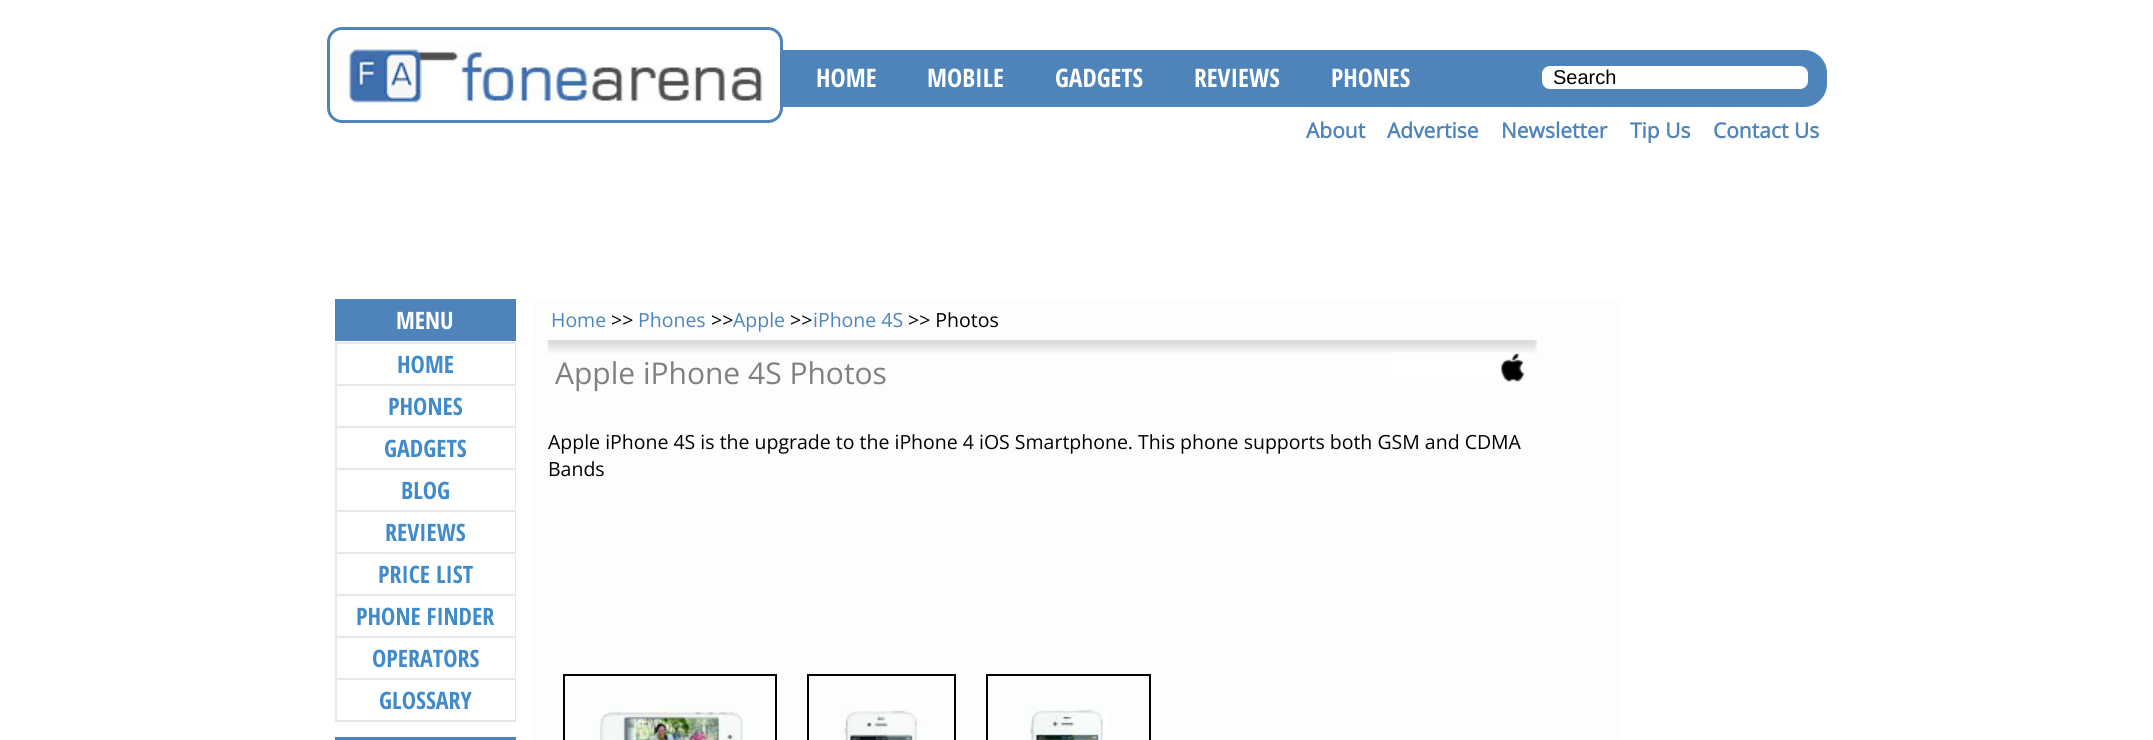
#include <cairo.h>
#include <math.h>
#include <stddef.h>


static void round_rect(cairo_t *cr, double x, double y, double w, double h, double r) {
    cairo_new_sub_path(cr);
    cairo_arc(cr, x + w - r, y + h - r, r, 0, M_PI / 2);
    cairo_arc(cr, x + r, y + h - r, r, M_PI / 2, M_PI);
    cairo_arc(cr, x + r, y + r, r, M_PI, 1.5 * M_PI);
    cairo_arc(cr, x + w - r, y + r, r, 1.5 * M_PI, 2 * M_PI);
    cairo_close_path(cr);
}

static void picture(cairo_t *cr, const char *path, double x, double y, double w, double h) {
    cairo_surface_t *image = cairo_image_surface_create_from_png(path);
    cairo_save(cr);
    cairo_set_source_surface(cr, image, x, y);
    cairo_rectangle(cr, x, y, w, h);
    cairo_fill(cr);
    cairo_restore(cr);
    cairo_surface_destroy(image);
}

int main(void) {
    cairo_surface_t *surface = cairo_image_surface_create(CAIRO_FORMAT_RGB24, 2153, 740);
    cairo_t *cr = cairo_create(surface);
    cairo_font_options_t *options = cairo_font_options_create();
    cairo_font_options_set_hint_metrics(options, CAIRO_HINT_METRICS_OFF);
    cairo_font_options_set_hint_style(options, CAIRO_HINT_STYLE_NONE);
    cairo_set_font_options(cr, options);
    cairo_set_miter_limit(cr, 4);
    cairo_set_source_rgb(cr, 1, 1, 1);
    cairo_paint(cr);
    cairo_set_source_rgb(cr, 0.31, 0.518, 0.733);
    cairo_rectangle(cr, 335, 299, 181, 42);
    cairo_fill(cr);
    cairo_select_font_face(cr, "Open Sans Condensed", CAIRO_FONT_SLANT_NORMAL, CAIRO_FONT_WEIGHT_BOLD);
    cairo_set_font_size(cr, 24);
    cairo_set_source_rgb(cr, 1, 1, 1);
    cairo_move_to(cr, 396, 329);
    cairo_show_text(cr, "MENU");
    cairo_set_source_rgb(cr, 0.902, 0.902, 0.902);
    cairo_rectangle(cr, 335, 720, 181, 2);
    cairo_fill(cr);
    cairo_set_source_rgb(cr, 0.906, 0.906, 0.906);
    cairo_rectangle(cr, 335, 342, 181, 2);
    cairo_fill(cr);
    cairo_rectangle(cr, 515, 342, 1, 42);
    cairo_fill(cr);
    cairo_rectangle(cr, 335, 342, 2, 42);
    cairo_fill(cr);
    cairo_set_source_rgb(cr, 0.259, 0.545, 0.792);
    cairo_move_to(cr, 397, 373);
    cairo_show_text(cr, "HOME");
    cairo_set_source_rgb(cr, 0.906, 0.906, 0.906);
    cairo_rectangle(cr, 335, 384, 181, 2);
    cairo_fill(cr);
    cairo_rectangle(cr, 515, 384, 1, 42);
    cairo_fill(cr);
    cairo_rectangle(cr, 335, 384, 2, 42);
    cairo_fill(cr);
    cairo_set_source_rgb(cr, 0.259, 0.545, 0.792);
    cairo_move_to(cr, 388, 415);
    cairo_show_text(cr, "PHONES");
    cairo_set_source_rgb(cr, 0.906, 0.906, 0.906);
    cairo_rectangle(cr, 335, 426, 181, 2);
    cairo_fill(cr);
    cairo_rectangle(cr, 515, 426, 1, 42);
    cairo_fill(cr);
    cairo_rectangle(cr, 335, 426, 2, 42);
    cairo_fill(cr);
    cairo_set_source_rgb(cr, 0.259, 0.545, 0.792);
    cairo_move_to(cr, 384, 457);
    cairo_show_text(cr, "GADGETS");
    cairo_set_source_rgb(cr, 0.906, 0.906, 0.906);
    cairo_rectangle(cr, 335, 468, 181, 2);
    cairo_fill(cr);
    cairo_rectangle(cr, 515, 468, 1, 42);
    cairo_fill(cr);
    cairo_rectangle(cr, 335, 468, 2, 42);
    cairo_fill(cr);
    cairo_set_source_rgb(cr, 0.259, 0.545, 0.792);
    cairo_move_to(cr, 401, 499);
    cairo_show_text(cr, "BLOG");
    cairo_set_source_rgb(cr, 0.906, 0.906, 0.906);
    cairo_rectangle(cr, 335, 510, 181, 2);
    cairo_fill(cr);
    cairo_rectangle(cr, 515, 510, 1, 42);
    cairo_fill(cr);
    cairo_rectangle(cr, 335, 510, 2, 42);
    cairo_fill(cr);
    cairo_set_source_rgb(cr, 0.259, 0.545, 0.792);
    cairo_move_to(cr, 385, 541);
    cairo_show_text(cr, "REVIEWS");
    cairo_set_source_rgb(cr, 0.906, 0.906, 0.906);
    cairo_rectangle(cr, 335, 552, 181, 2);
    cairo_fill(cr);
    cairo_rectangle(cr, 515, 552, 1, 42);
    cairo_fill(cr);
    cairo_rectangle(cr, 335, 552, 2, 42);
    cairo_fill(cr);
    cairo_set_source_rgb(cr, 0.259, 0.545, 0.792);
    cairo_move_to(cr, 378, 583);
    cairo_show_text(cr, "PRICE LIST");
    cairo_set_source_rgb(cr, 0.906, 0.906, 0.906);
    cairo_rectangle(cr, 335, 594, 181, 2);
    cairo_fill(cr);
    cairo_rectangle(cr, 515, 594, 1, 42);
    cairo_fill(cr);
    cairo_rectangle(cr, 335, 594, 2, 42);
    cairo_fill(cr);
    cairo_set_source_rgb(cr, 0.259, 0.545, 0.792);
    cairo_move_to(cr, 356, 625);
    cairo_show_text(cr, "PHONE FINDER");
    cairo_set_source_rgb(cr, 0.906, 0.906, 0.906);
    cairo_rectangle(cr, 335, 636, 181, 2);
    cairo_fill(cr);
    cairo_rectangle(cr, 515, 636, 1, 42);
    cairo_fill(cr);
    cairo_rectangle(cr, 335, 636, 2, 42);
    cairo_fill(cr);
    cairo_set_source_rgb(cr, 0.259, 0.545, 0.792);
    cairo_move_to(cr, 372, 667);
    cairo_show_text(cr, "OPERATORS");
    cairo_set_source_rgb(cr, 0.906, 0.906, 0.906);
    cairo_rectangle(cr, 335, 678, 181, 2);
    cairo_fill(cr);
    cairo_rectangle(cr, 515, 678, 1, 42);
    cairo_fill(cr);
    cairo_rectangle(cr, 335, 678, 2, 42);
    cairo_fill(cr);
    cairo_set_source_rgb(cr, 0.259, 0.545, 0.792);
    cairo_move_to(cr, 379, 709);
    cairo_show_text(cr, "GLOSSARY");
    cairo_set_source_rgb(cr, 0.31, 0.518, 0.733);
    cairo_rectangle(cr, 335, 737, 181, 3);
    cairo_fill(cr);
    picture(cr, "img1.png", 342, 42, 421, 61);
    round_rect(cr, 328.5, 28.5, 453, 93, 13.5);
    cairo_set_line_width(cr, 3);
    cairo_stroke(cr);
    cairo_new_path(cr);
    cairo_move_to(cr, 783, 50);
    cairo_line_to(cr, 1804, 50);
    cairo_curve_to(cr, 1816.5, 50, 1827, 60.5, 1827, 73);
    cairo_line_to(cr, 1827, 84);
    cairo_curve_to(cr, 1827, 96.5, 1816.5, 107, 1804, 107);
    cairo_line_to(cr, 783, 107);
    cairo_close_path(cr);
    cairo_fill(cr);
    cairo_set_font_size(cr, 25.5);
    cairo_set_source_rgb(cr, 1, 1, 1);
    cairo_move_to(cr, 816, 87);
    cairo_show_text(cr, "HOME");
    cairo_move_to(cr, 927, 87);
    cairo_show_text(cr, "MOBILE");
    cairo_move_to(cr, 1055, 87);
    cairo_show_text(cr, "GADGETS");
    cairo_move_to(cr, 1194, 87);
    cairo_show_text(cr, "REVIEWS");
    cairo_move_to(cr, 1331, 87);
    cairo_show_text(cr, "PHONES");
    round_rect(cr, 1542, 66, 266, 23, 8);
    cairo_fill(cr);
    cairo_select_font_face(cr, "Liberation Sans", CAIRO_FONT_SLANT_NORMAL, CAIRO_FONT_WEIGHT_NORMAL);
    cairo_set_font_size(cr, 20);
    cairo_set_source_rgb(cr, 0, 0, 0);
    cairo_move_to(cr, 1553, 84);
    cairo_show_text(cr, "Search");
    cairo_select_font_face(cr, "Open Sans", CAIRO_FONT_SLANT_NORMAL, CAIRO_FONT_WEIGHT_BOLD);
    cairo_set_font_size(cr, 21);
    cairo_set_source_rgb(cr, 0.31, 0.518, 0.733);
    cairo_move_to(cr, 1306, 138);
    cairo_show_text(cr, "About");
    cairo_move_to(cr, 1387, 138);
    cairo_show_text(cr, "Advertise");
    cairo_move_to(cr, 1501, 138);
    cairo_show_text(cr, "Newsletter");
    cairo_move_to(cr, 1630, 138);
    cairo_show_text(cr, "Tip Us");
    cairo_move_to(cr, 1713, 138);
    cairo_show_text(cr, "Contact Us");
    cairo_set_source_rgb(cr, 0.988, 0.996, 0.996);
    cairo_rectangle(cr, 533, 299, 1086, 441);
    cairo_fill(cr);
    cairo_select_font_face(cr, "Open Sans", CAIRO_FONT_SLANT_NORMAL, CAIRO_FONT_WEIGHT_NORMAL);
    cairo_set_font_size(cr, 19.5);
    cairo_set_source_rgb(cr, 0.31, 0.518, 0.733);
    cairo_move_to(cr, 551, 327);
    cairo_show_text(cr, "Home");
    cairo_set_source_rgb(cr, 0, 0, 0);
    cairo_move_to(cr, 611, 327);
    cairo_show_text(cr, ">>");
    cairo_set_source_rgb(cr, 0.31, 0.518, 0.733);
    cairo_move_to(cr, 638, 327);
    cairo_show_text(cr, "Phones");
    cairo_set_source_rgb(cr, 0, 0, 0);
    cairo_move_to(cr, 711, 327);
    cairo_show_text(cr, ">>");
    cairo_set_source_rgb(cr, 0.31, 0.518, 0.733);
    cairo_move_to(cr, 733, 327);
    cairo_show_text(cr, "Apple");
    cairo_set_source_rgb(cr, 0, 0, 0);
    cairo_move_to(cr, 790, 327);
    cairo_show_text(cr, ">>");
    cairo_set_source_rgb(cr, 0.31, 0.518, 0.733);
    cairo_move_to(cr, 813, 327);
    cairo_show_text(cr, "iPhone 4S");
    cairo_set_source_rgb(cr, 0, 0, 0);
    cairo_move_to(cr, 908, 327);
    cairo_show_text(cr, ">> Photos");
    picture(cr, "img2.png", 548, 340, 989, 14);
    cairo_set_font_size(cr, 30);
    cairo_set_source_rgb(cr, 0.506, 0.498, 0.51);
    cairo_move_to(cr, 555, 384);
    cairo_show_text(cr, "Apple iPhone 4S Photos");
    picture(cr, "img3.png", 1391, 352, 137, 30);
    cairo_set_font_size(cr, 19.5);
    cairo_set_source_rgb(cr, 0, 0, 0);
    cairo_move_to(cr, 548, 449);
    cairo_show_text(cr, "Apple iPhone 4S is the upgrade to the iPhone 4 iOS Smartphone. This phone supports both GSM and CDMA");
    cairo_move_to(cr, 548, 476);
    cairo_show_text(cr, "Bands");
    cairo_rectangle(cr, 564, 675, 212, 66);
    cairo_set_line_width(cr, 2);
    cairo_stroke(cr);
    picture(cr, "img4.png", 599, 707, 144, 33);
    cairo_rectangle(cr, 808, 675, 147, 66);
    cairo_stroke(cr);
    picture(cr, "img5.png", 840, 710, 81, 30);
    cairo_rectangle(cr, 987, 675, 163, 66);
    cairo_stroke(cr);
    picture(cr, "img6.png", 1030, 707, 78, 33);
    cairo_surface_write_to_png(surface, "page.png");
    cairo_font_options_destroy(options);
    cairo_destroy(cr);
    cairo_surface_destroy(surface);
    return 0;
}
